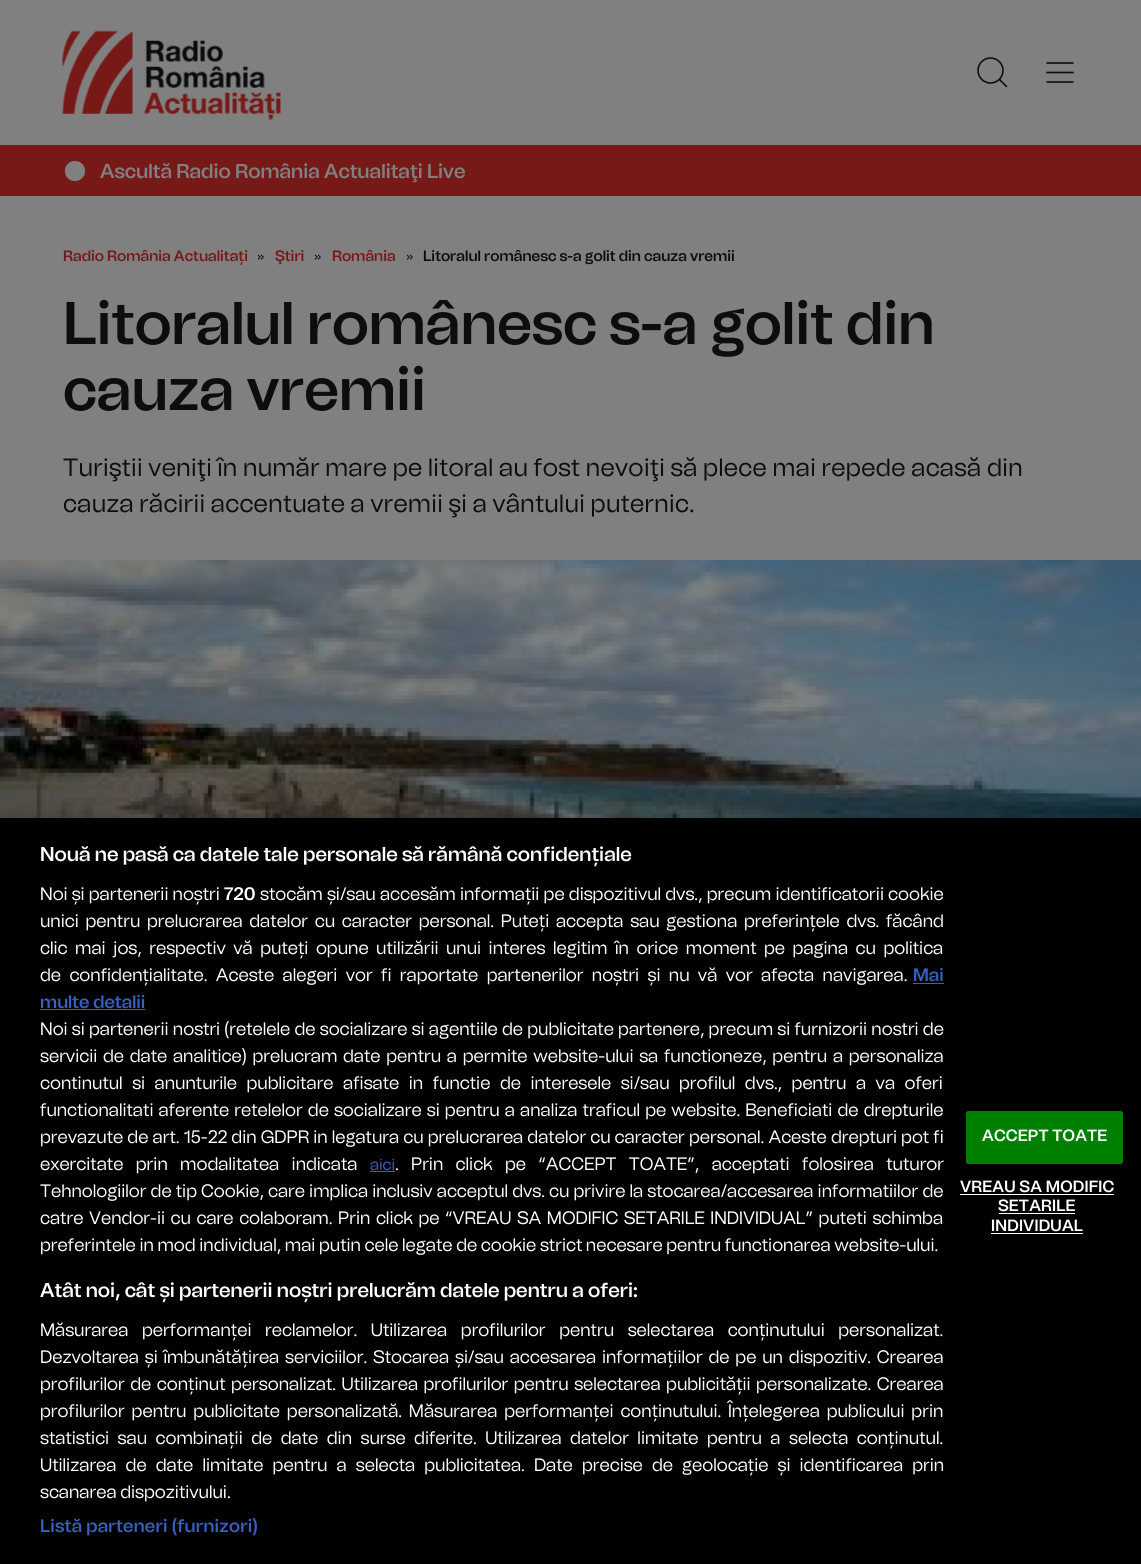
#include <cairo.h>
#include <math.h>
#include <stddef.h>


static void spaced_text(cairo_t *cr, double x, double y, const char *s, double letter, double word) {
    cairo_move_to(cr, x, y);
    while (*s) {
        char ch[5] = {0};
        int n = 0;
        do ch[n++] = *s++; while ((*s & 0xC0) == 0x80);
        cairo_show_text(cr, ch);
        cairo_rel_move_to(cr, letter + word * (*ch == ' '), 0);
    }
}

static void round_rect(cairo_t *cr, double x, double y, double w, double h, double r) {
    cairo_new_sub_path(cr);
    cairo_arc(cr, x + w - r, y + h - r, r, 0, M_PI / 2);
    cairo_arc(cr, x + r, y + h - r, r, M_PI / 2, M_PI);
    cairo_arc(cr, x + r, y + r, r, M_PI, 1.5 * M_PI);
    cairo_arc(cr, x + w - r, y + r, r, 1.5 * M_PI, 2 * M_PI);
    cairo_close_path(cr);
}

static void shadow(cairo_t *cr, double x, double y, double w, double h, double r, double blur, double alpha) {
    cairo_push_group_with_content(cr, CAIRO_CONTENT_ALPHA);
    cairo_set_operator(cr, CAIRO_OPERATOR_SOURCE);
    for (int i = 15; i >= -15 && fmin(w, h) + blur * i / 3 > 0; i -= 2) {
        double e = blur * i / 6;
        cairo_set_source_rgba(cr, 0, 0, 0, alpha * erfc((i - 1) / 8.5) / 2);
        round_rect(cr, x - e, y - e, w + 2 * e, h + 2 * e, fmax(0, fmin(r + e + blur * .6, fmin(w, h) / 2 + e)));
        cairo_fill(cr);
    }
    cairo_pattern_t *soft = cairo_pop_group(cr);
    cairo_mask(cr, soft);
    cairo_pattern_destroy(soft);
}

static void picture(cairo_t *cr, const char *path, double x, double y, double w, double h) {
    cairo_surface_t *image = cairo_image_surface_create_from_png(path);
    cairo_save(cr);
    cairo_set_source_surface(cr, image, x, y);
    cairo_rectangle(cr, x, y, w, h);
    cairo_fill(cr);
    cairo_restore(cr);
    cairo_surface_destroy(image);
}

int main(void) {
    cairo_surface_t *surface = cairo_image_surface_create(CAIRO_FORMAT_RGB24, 1141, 1564);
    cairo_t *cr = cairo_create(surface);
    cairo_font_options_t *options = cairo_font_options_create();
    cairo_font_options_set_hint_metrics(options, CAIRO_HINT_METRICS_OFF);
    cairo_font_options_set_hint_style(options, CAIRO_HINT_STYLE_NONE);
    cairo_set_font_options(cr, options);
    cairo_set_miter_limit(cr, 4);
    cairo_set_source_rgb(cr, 0.502, 0.502, 0.502);
    cairo_paint(cr);
    picture(cr, "img1.png", 62, 30, 219, 90);
    cairo_arc(cr, 990.5, 70.5, 12.5, 0, 2 * M_PI);
    cairo_set_source_rgb(cr, 0.051, 0.051, 0.051);
    cairo_set_line_width(cr, 1.6);
    cairo_stroke(cr);
    cairo_new_path(cr);
    cairo_move_to(cr, 999.5, 79.5);
    cairo_line_to(cr, 1006.5, 86.5);
    cairo_set_line_cap(cr, CAIRO_LINE_CAP_ROUND);
    cairo_set_line_join(cr, CAIRO_LINE_JOIN_ROUND);
    cairo_stroke(cr);
    cairo_new_path(cr);
    cairo_move_to(cr, 1047, 72.5);
    cairo_line_to(cr, 1073, 72.5);
    cairo_move_to(cr, 1047, 63);
    cairo_line_to(cr, 1073, 63);
    cairo_move_to(cr, 1047, 82);
    cairo_line_to(cr, 1073, 82);
    cairo_stroke(cr);
    cairo_set_source_rgb(cr, 0.467, 0.098, 0.09);
    cairo_rectangle(cr, 0, 145, 1141, 51);
    cairo_fill(cr);
    cairo_arc(cr, 75, 171, 9.5, 0, 2 * M_PI);
    cairo_set_source_rgb(cr, 0.494, 0.42, 0.42);
    cairo_set_line_width(cr, 1);
    cairo_set_line_cap(cr, CAIRO_LINE_CAP_BUTT);
    cairo_set_line_join(cr, CAIRO_LINE_JOIN_MITER);
    cairo_stroke(cr);
    cairo_set_source_rgb(cr, 0.502, 0.502, 0.502);
    cairo_arc(cr, 75, 171, 10, 0, 2 * M_PI);
    cairo_fill(cr);
    cairo_select_font_face(cr, "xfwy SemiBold", CAIRO_FONT_SLANT_NORMAL, CAIRO_FONT_WEIGHT_NORMAL);
    cairo_set_font_size(cr, 20);
    cairo_move_to(cr, 100, 178);
    cairo_show_text(cr, "Ascultă Radio România Actualitaţi Live");
    cairo_set_font_size(cr, 15);
    cairo_set_source_rgb(cr, 0.467, 0.098, 0.09);
    cairo_move_to(cr, 63, 261);
    cairo_show_text(cr, "Radio România Actualitați");
    cairo_select_font_face(cr, "xfwy", CAIRO_FONT_SLANT_NORMAL, CAIRO_FONT_WEIGHT_NORMAL);
    cairo_set_source_rgb(cr, 0.051, 0.051, 0.051);
    cairo_move_to(cr, 257, 261);
    cairo_show_text(cr, "»");
    cairo_select_font_face(cr, "xfwy SemiBold", CAIRO_FONT_SLANT_NORMAL, CAIRO_FONT_WEIGHT_NORMAL);
    cairo_set_source_rgb(cr, 0.467, 0.098, 0.09);
    cairo_move_to(cr, 275, 261);
    cairo_show_text(cr, "Ştiri");
    cairo_select_font_face(cr, "xfwy", CAIRO_FONT_SLANT_NORMAL, CAIRO_FONT_WEIGHT_NORMAL);
    cairo_set_source_rgb(cr, 0.051, 0.051, 0.051);
    cairo_move_to(cr, 314, 261);
    cairo_show_text(cr, "»");
    cairo_select_font_face(cr, "xfwy SemiBold", CAIRO_FONT_SLANT_NORMAL, CAIRO_FONT_WEIGHT_NORMAL);
    cairo_set_source_rgb(cr, 0.467, 0.098, 0.09);
    cairo_move_to(cr, 332, 261);
    cairo_show_text(cr, "România");
    cairo_select_font_face(cr, "xfwy", CAIRO_FONT_SLANT_NORMAL, CAIRO_FONT_WEIGHT_NORMAL);
    cairo_set_source_rgb(cr, 0.051, 0.051, 0.051);
    cairo_move_to(cr, 406, 261);
    cairo_show_text(cr, "»");
    cairo_select_font_face(cr, "xfwy SemiBold", CAIRO_FONT_SLANT_NORMAL, CAIRO_FONT_WEIGHT_NORMAL);
    cairo_move_to(cr, 423, 261);
    cairo_show_text(cr, "Litoralul românesc s-a golit din cauza vremii");
    cairo_set_font_size(cr, 60);
    cairo_move_to(cr, 63, 344);
    cairo_show_text(cr, "Litoralul românesc s-a golit din");
    cairo_move_to(cr, 63, 410);
    cairo_show_text(cr, "cauza vremii");
    cairo_select_font_face(cr, "xfwy", CAIRO_FONT_SLANT_NORMAL, CAIRO_FONT_WEIGHT_NORMAL);
    cairo_set_font_size(cr, 25);
    spaced_text(cr, 63, 476, "Turiştii veniţi în număr mare pe litoral au fost nevoiţi să plece mai repede acasă din", 0.38, 0);
    spaced_text(cr, 63, 512, "cauza răcirii accentuate a vremii şi a vântului puternic.", 0.38, 0);
    picture(cr, "img2.png", 0, 560, 1141, 258);
    cairo_set_source_rgb(cr, 0, 0, 0);
    shadow(cr, 0, 818, 1141, 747, 0, 11, 0.2);
    cairo_set_source_rgb(cr, 0, 0, 0);
    cairo_rectangle(cr, 0, 818, 1141, 746);
    cairo_fill(cr);
    cairo_select_font_face(cr, "xfwy SemiBold", CAIRO_FONT_SLANT_NORMAL, CAIRO_FONT_WEIGHT_NORMAL);
    cairo_set_font_size(cr, 20);
    cairo_set_source_rgb(cr, 1, 1, 1);
    cairo_move_to(cr, 40, 861);
    cairo_show_text(cr, "Nouă ne pasă ca datele tale personale să rămână confidențiale");
    cairo_select_font_face(cr, "xfwy", CAIRO_FONT_SLANT_NORMAL, CAIRO_FONT_WEIGHT_NORMAL);
    cairo_set_font_size(cr, 18);
    spaced_text(cr, 40, 900, "Noi și partenerii noștri", 0, 0.5);
    cairo_select_font_face(cr, "xfwy SemiBold", CAIRO_FONT_SLANT_NORMAL, CAIRO_FONT_WEIGHT_NORMAL);
    cairo_move_to(cr, 224, 900);
    cairo_show_text(cr, "720");
    cairo_select_font_face(cr, "xfwy", CAIRO_FONT_SLANT_NORMAL, CAIRO_FONT_WEIGHT_NORMAL);
    spaced_text(cr, 260, 900, "stocăm și/sau accesăm informații pe dispozitivul dvs., precum identificatorii cookie", 0, 0.6);
    spaced_text(cr, 40, 927, "unici pentru prelucrarea datelor cu caracter personal. Puteți accepta sau gestiona preferințele dvs. făcând", 0, 3.1);
    spaced_text(cr, 40, 954, "clic mai jos, respectiv vă puteți opune utilizării unui interes legitim în orice moment pe pagina cu politica", 0, 3.9);
    spaced_text(cr, 40, 981, "de confidențialitate. Aceste alegeri vor fi raportate partenerilor noștri și nu vă vor afecta navigarea.", 0, 4.75);
    cairo_select_font_face(cr, "xfwy SemiBold", CAIRO_FONT_SLANT_NORMAL, CAIRO_FONT_WEIGHT_NORMAL);
    cairo_set_source_rgb(cr, 0.22, 0.376, 0.745);
    cairo_move_to(cr, 913, 981);
    cairo_show_text(cr, "Mai");
    cairo_rectangle(cr, 913, 983, 31, 1);
    cairo_fill(cr);
    cairo_move_to(cr, 40, 1008);
    cairo_show_text(cr, "multe detalii");
    cairo_rectangle(cr, 40, 1009, 105, 1);
    cairo_fill(cr);
    cairo_select_font_face(cr, "xfwy", CAIRO_FONT_SLANT_NORMAL, CAIRO_FONT_WEIGHT_NORMAL);
    cairo_set_source_rgb(cr, 1, 1, 1);
    spaced_text(cr, 40, 1035, "Noi si partenerii nostri (retelele de socializare si agentiile de publicitate partenere, precum si furnizorii nostri de", 0, 0.6);
    spaced_text(cr, 40, 1062, "servicii de date analitice) prelucram date pentru a permite website-ului sa functioneze, pentru a personaliza", 0, 2.1);
    spaced_text(cr, 40, 1089, "continutul si anunturile publicitare afisate in functie de interesele si/sau profilul dvs., pentru a va oferi", 0, 5.9);
    spaced_text(cr, 40, 1116, "functionalitati aferente retelelor de socializare si pentru a analiza traficul pe website. Beneficiati de drepturile", 0, 1.5);
    spaced_text(cr, 40, 1143, "prevazute de art. 15-22 din GDPR in legatura cu prelucrarea datelor cu caracter personal. Aceste drepturi pot fi", 0, 0.5);
    spaced_text(cr, 40, 1170, "exercitate prin modalitatea indicata", 0, 8.75);
    cairo_set_font_size(cr, 16);
    cairo_set_source_rgb(cr, 0.22, 0.376, 0.745);
    cairo_move_to(cr, 370, 1170);
    cairo_show_text(cr, "aici");
    cairo_rectangle(cr, 370, 1171, 25, 1);
    cairo_fill(cr);
    cairo_set_font_size(cr, 18);
    cairo_set_source_rgb(cr, 1, 1, 1);
    spaced_text(cr, 395, 1170, ". Prin click pe “ACCEPT TOATE”, acceptati folosirea tuturor", 0, 8.75);
    spaced_text(cr, 40, 1197, "Tehnologiilor de tip Cookie, care implica inclusiv acceptul dvs. cu privire la stocarea/accesarea informatiilor de", 0, 0.5);
    spaced_text(cr, 40, 1224, "catre Vendor-ii cu care colaboram. Prin click pe “VREAU SA MODIFIC SETARILE INDIVIDUAL” puteti schimba", 0, 2);
    cairo_move_to(cr, 40, 1251);
    cairo_show_text(cr, "preferintele in mod individual, mai putin cele legate de cookie strict necesare pentru functionarea website-ului.");
    cairo_select_font_face(cr, "xfwy SemiBold", CAIRO_FONT_SLANT_NORMAL, CAIRO_FONT_WEIGHT_NORMAL);
    cairo_set_font_size(cr, 20);
    cairo_move_to(cr, 40, 1297);
    cairo_show_text(cr, "Atât noi, cât și partenerii noștri prelucrăm datele pentru a oferi:");
    cairo_select_font_face(cr, "xfwy", CAIRO_FONT_SLANT_NORMAL, CAIRO_FONT_WEIGHT_NORMAL);
    cairo_set_font_size(cr, 18);
    spaced_text(cr, 40, 1336, "Măsurarea performanței reclamelor. Utilizarea profilurilor pentru selectarea conținutului personalizat.", 0, 10);
    spaced_text(cr, 40, 1363, "Dezvoltarea și îmbunătățirea serviciilor. Stocarea și/sau accesarea informațiilor de pe un dispozitiv. Crearea", 0, 2.25);
    spaced_text(cr, 40, 1390, "profilurilor de conținut personalizat. Utilizarea profilurilor pentru selectarea publicității personalizate. Crearea", 0, 1.9);
    spaced_text(cr, 40, 1417, "profilurilor pentru publicitate personalizată. Măsurarea performanței conținutului. Înțelegerea publicului prin", 0, 3.25);
    spaced_text(cr, 40, 1444, "statistici sau combinații de date din surse diferite. Utilizarea datelor limitate pentru a selecta conținutul.", 0, 4.9);
    spaced_text(cr, 40, 1471, "Utilizarea de date limitate pentru a selecta publicitatea. Date precise de geolocație și identificarea prin", 0, 5.5);
    cairo_move_to(cr, 40, 1498);
    cairo_show_text(cr, "scanarea dispozitivului.");
    cairo_select_font_face(cr, "xfwy SemiBold", CAIRO_FONT_SLANT_NORMAL, CAIRO_FONT_WEIGHT_NORMAL);
    cairo_set_source_rgb(cr, 0.22, 0.376, 0.745);
    spaced_text(cr, 40, 1532, "Listă parteneri (furnizori)", 0.2, 0);
    cairo_set_source_rgb(cr, 0, 0.502, 0);
    round_rect(cr, 966.5, 1111.5, 156, 52, 2);
    cairo_fill_preserve(cr);
    cairo_stroke(cr);
    cairo_set_font_size(cr, 16.25);
    cairo_set_source_rgb(cr, 1, 1, 1);
    spaced_text(cr, 982, 1141, "ACCEPT TOATE", 0.2, 0);
    spaced_text(cr, 960, 1192, "VREAU SA MODIFIC", 0.2, 0);
    cairo_rectangle(cr, 960, 1194, 154, 1);
    cairo_fill(cr);
    spaced_text(cr, 998, 1211, "SETARILE", 0.2, 0);
    cairo_rectangle(cr, 999, 1213, 76, 1);
    cairo_fill(cr);
    spaced_text(cr, 991, 1231, "INDIVIDUAL", 0.2, 0);
    cairo_rectangle(cr, 991, 1233, 92, 1);
    cairo_fill(cr);
    cairo_surface_write_to_png(surface, "page.png");
    cairo_font_options_destroy(options);
    cairo_destroy(cr);
    cairo_surface_destroy(surface);
    return 0;
}
